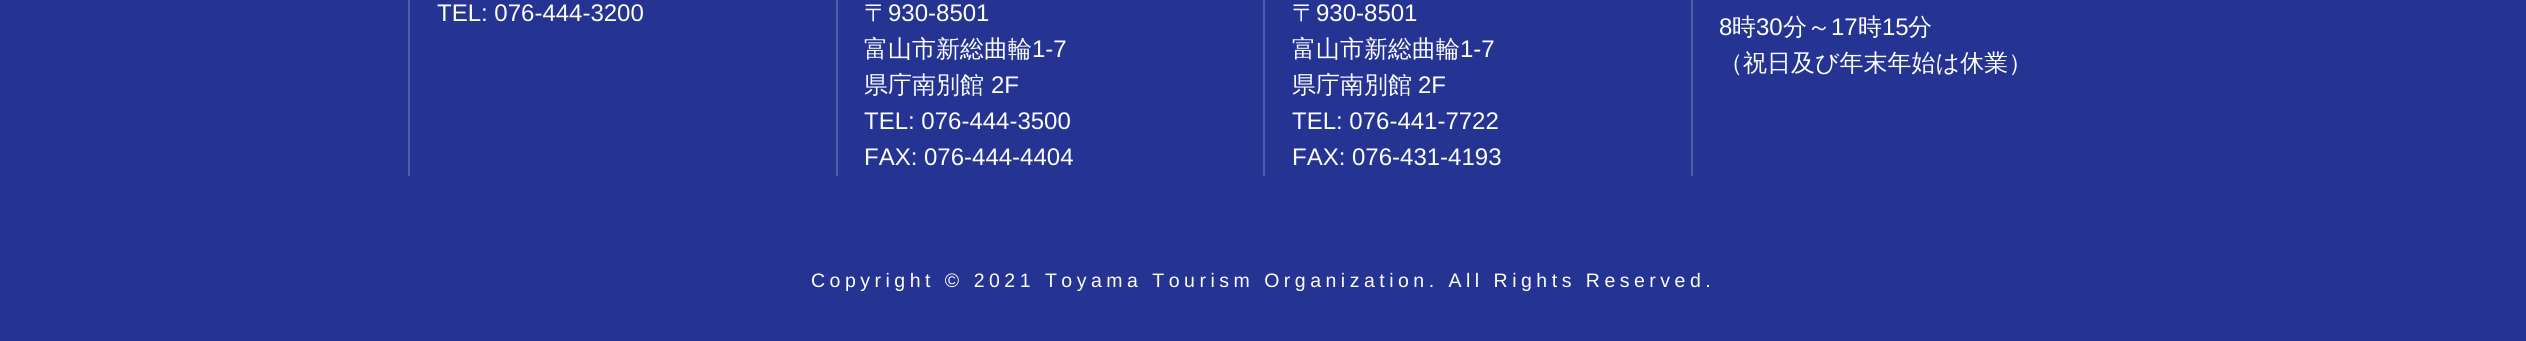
#include <cairo.h>
#include <math.h>
#include <stddef.h>


static void spaced_text(cairo_t *cr, double x, double y, const char *s, double letter, double word) {
    cairo_move_to(cr, x, y);
    while (*s) {
        char ch[5] = {0};
        int n = 0;
        do ch[n++] = *s++; while ((*s & 0xC0) == 0x80);
        cairo_show_text(cr, ch);
        cairo_rel_move_to(cr, letter + word * (*ch == ' '), 0);
    }
}

int main(void) {
    cairo_surface_t *surface = cairo_image_surface_create(CAIRO_FORMAT_RGB24, 2526, 341);
    cairo_t *cr = cairo_create(surface);
    cairo_font_options_t *options = cairo_font_options_create();
    cairo_font_options_set_hint_metrics(options, CAIRO_HINT_METRICS_OFF);
    cairo_font_options_set_hint_style(options, CAIRO_HINT_STYLE_NONE);
    cairo_set_font_options(cr, options);
    cairo_set_miter_limit(cr, 4);
    cairo_set_source_rgb(cr, 0.145, 0.2, 0.576);
    cairo_paint(cr);
    cairo_set_source_rgb(cr, 0.318, 0.361, 0.663);
    cairo_rectangle(cr, 408, 0, 2, 176);
    cairo_fill(cr);
    cairo_select_font_face(cr, "Liberation Sans", CAIRO_FONT_SLANT_NORMAL, CAIRO_FONT_WEIGHT_NORMAL);
    cairo_set_font_size(cr, 24);
    cairo_set_source_rgb(cr, 1, 1, 1);
    cairo_move_to(cr, 437, 21);
    cairo_show_text(cr, "TEL: 076-444-3200");
    cairo_set_source_rgb(cr, 0.318, 0.361, 0.663);
    cairo_rectangle(cr, 836, 0, 2, 176);
    cairo_fill(cr);
    cairo_select_font_face(cr, "WenQuanYi Zen Hei Medium", CAIRO_FONT_SLANT_NORMAL, CAIRO_FONT_WEIGHT_NORMAL);
    cairo_set_source_rgb(cr, 1, 1, 1);
    cairo_move_to(cr, 864, 21);
    cairo_show_text(cr, "〒");
    cairo_select_font_face(cr, "Liberation Sans", CAIRO_FONT_SLANT_NORMAL, CAIRO_FONT_WEIGHT_NORMAL);
    cairo_move_to(cr, 888, 21);
    cairo_show_text(cr, "930-8501");
    cairo_select_font_face(cr, "WenQuanYi Zen Hei Medium", CAIRO_FONT_SLANT_NORMAL, CAIRO_FONT_WEIGHT_NORMAL);
    cairo_move_to(cr, 864, 57);
    cairo_show_text(cr, "富山市新総曲輪");
    cairo_select_font_face(cr, "Liberation Sans", CAIRO_FONT_SLANT_NORMAL, CAIRO_FONT_WEIGHT_NORMAL);
    cairo_move_to(cr, 1032, 57);
    cairo_show_text(cr, "1-7");
    cairo_select_font_face(cr, "WenQuanYi Zen Hei Medium", CAIRO_FONT_SLANT_NORMAL, CAIRO_FONT_WEIGHT_NORMAL);
    cairo_move_to(cr, 864, 93);
    cairo_show_text(cr, "県庁南別館");
    cairo_select_font_face(cr, "Liberation Sans", CAIRO_FONT_SLANT_NORMAL, CAIRO_FONT_WEIGHT_NORMAL);
    cairo_move_to(cr, 991, 93);
    cairo_show_text(cr, "2F");
    cairo_move_to(cr, 864, 129);
    cairo_show_text(cr, "TEL: 076-444-3500");
    cairo_move_to(cr, 864, 165);
    cairo_show_text(cr, "FAX: 076-444-4404");
    cairo_set_source_rgb(cr, 0.318, 0.361, 0.663);
    cairo_rectangle(cr, 1263, 0, 2, 176);
    cairo_fill(cr);
    cairo_select_font_face(cr, "WenQuanYi Zen Hei Medium", CAIRO_FONT_SLANT_NORMAL, CAIRO_FONT_WEIGHT_NORMAL);
    cairo_set_source_rgb(cr, 1, 1, 1);
    cairo_move_to(cr, 1292, 21);
    cairo_show_text(cr, "〒");
    cairo_select_font_face(cr, "Liberation Sans", CAIRO_FONT_SLANT_NORMAL, CAIRO_FONT_WEIGHT_NORMAL);
    cairo_move_to(cr, 1316, 21);
    cairo_show_text(cr, "930-8501");
    cairo_select_font_face(cr, "WenQuanYi Zen Hei Medium", CAIRO_FONT_SLANT_NORMAL, CAIRO_FONT_WEIGHT_NORMAL);
    cairo_move_to(cr, 1292, 57);
    cairo_show_text(cr, "富山市新総曲輪");
    cairo_select_font_face(cr, "Liberation Sans", CAIRO_FONT_SLANT_NORMAL, CAIRO_FONT_WEIGHT_NORMAL);
    cairo_move_to(cr, 1460, 57);
    cairo_show_text(cr, "1-7");
    cairo_select_font_face(cr, "WenQuanYi Zen Hei Medium", CAIRO_FONT_SLANT_NORMAL, CAIRO_FONT_WEIGHT_NORMAL);
    cairo_move_to(cr, 1292, 93);
    cairo_show_text(cr, "県庁南別館");
    cairo_select_font_face(cr, "Liberation Sans", CAIRO_FONT_SLANT_NORMAL, CAIRO_FONT_WEIGHT_NORMAL);
    cairo_move_to(cr, 1418, 93);
    cairo_show_text(cr, "2F");
    cairo_move_to(cr, 1292, 129);
    cairo_show_text(cr, "TEL: 076-441-7722");
    cairo_move_to(cr, 1292, 165);
    cairo_show_text(cr, "FAX: 076-431-4193");
    cairo_set_source_rgb(cr, 0.318, 0.361, 0.663);
    cairo_rectangle(cr, 1691, 0, 2, 176);
    cairo_fill(cr);
    cairo_set_source_rgb(cr, 1, 1, 1);
    cairo_move_to(cr, 1719, 35);
    cairo_show_text(cr, "8");
    cairo_select_font_face(cr, "WenQuanYi Zen Hei Medium", CAIRO_FONT_SLANT_NORMAL, CAIRO_FONT_WEIGHT_NORMAL);
    cairo_move_to(cr, 1732, 35);
    cairo_show_text(cr, "時");
    cairo_select_font_face(cr, "Liberation Sans", CAIRO_FONT_SLANT_NORMAL, CAIRO_FONT_WEIGHT_NORMAL);
    cairo_move_to(cr, 1756, 35);
    cairo_show_text(cr, "30");
    cairo_select_font_face(cr, "WenQuanYi Zen Hei Medium", CAIRO_FONT_SLANT_NORMAL, CAIRO_FONT_WEIGHT_NORMAL);
    cairo_move_to(cr, 1783, 35);
    cairo_show_text(cr, "分～");
    cairo_select_font_face(cr, "Liberation Sans", CAIRO_FONT_SLANT_NORMAL, CAIRO_FONT_WEIGHT_NORMAL);
    cairo_move_to(cr, 1831, 35);
    cairo_show_text(cr, "17");
    cairo_select_font_face(cr, "WenQuanYi Zen Hei Medium", CAIRO_FONT_SLANT_NORMAL, CAIRO_FONT_WEIGHT_NORMAL);
    cairo_move_to(cr, 1858, 35);
    cairo_show_text(cr, "時");
    cairo_select_font_face(cr, "Liberation Sans", CAIRO_FONT_SLANT_NORMAL, CAIRO_FONT_WEIGHT_NORMAL);
    cairo_move_to(cr, 1882, 35);
    cairo_show_text(cr, "15");
    cairo_select_font_face(cr, "WenQuanYi Zen Hei Medium", CAIRO_FONT_SLANT_NORMAL, CAIRO_FONT_WEIGHT_NORMAL);
    cairo_move_to(cr, 1908, 35);
    cairo_show_text(cr, "分");
    cairo_move_to(cr, 1719, 71);
    cairo_show_text(cr, "（祝日及び年末年始は休業）");
    cairo_select_font_face(cr, "Liberation Sans", CAIRO_FONT_SLANT_NORMAL, CAIRO_FONT_WEIGHT_NORMAL);
    cairo_set_font_size(cr, 19.5);
    spaced_text(cr, 811, 287, "Copyright © 2021 Toyama Tourism Organization. All Rights Reserved.", 4.5, 0);
    cairo_surface_write_to_png(surface, "page.png");
    cairo_font_options_destroy(options);
    cairo_destroy(cr);
    cairo_surface_destroy(surface);
    return 0;
}
